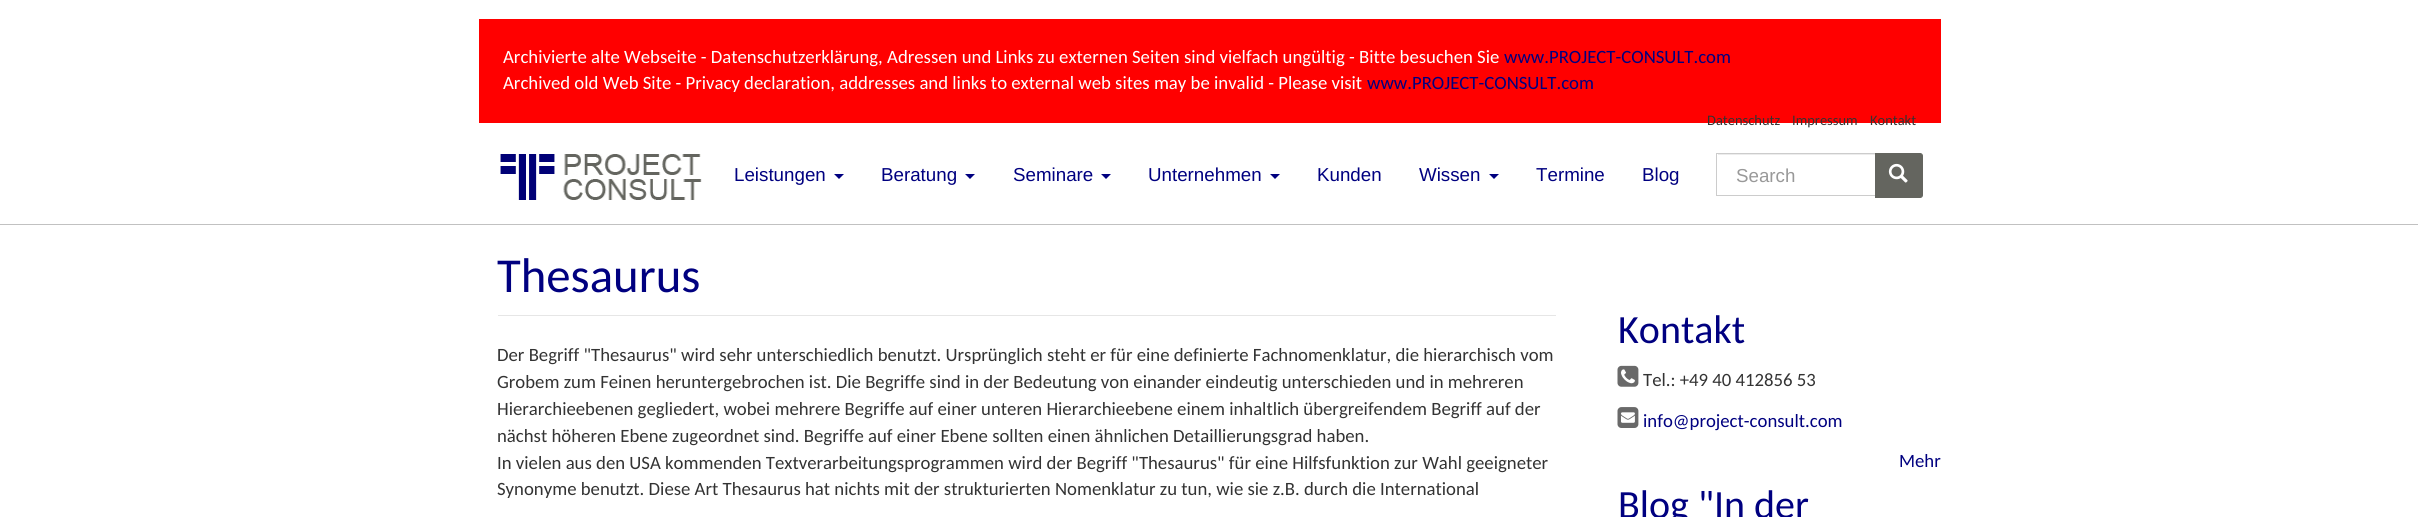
#include <cairo.h>
#include <math.h>
#include <stddef.h>


static void picture(cairo_t *cr, const char *path, double x, double y, double w, double h) {
    cairo_surface_t *image = cairo_image_surface_create_from_png(path);
    cairo_save(cr);
    cairo_set_source_surface(cr, image, x, y);
    cairo_rectangle(cr, x, y, w, h);
    cairo_fill(cr);
    cairo_restore(cr);
    cairo_surface_destroy(image);
}

int main(void) {
    cairo_surface_t *surface = cairo_image_surface_create(CAIRO_FORMAT_RGB24, 2418, 517);
    cairo_t *cr = cairo_create(surface);
    cairo_font_options_t *options = cairo_font_options_create();
    cairo_font_options_set_hint_metrics(options, CAIRO_HINT_METRICS_OFF);
    cairo_font_options_set_hint_style(options, CAIRO_HINT_STYLE_NONE);
    cairo_set_font_options(cr, options);
    cairo_set_miter_limit(cr, 4);
    cairo_set_source_rgb(cr, 1, 1, 1);
    cairo_paint(cr);
    cairo_set_source_rgb(cr, 1, 0, 0);
    cairo_rectangle(cr, 479, 19, 1462, 104);
    cairo_fill(cr);
    cairo_select_font_face(cr, "Carlito", CAIRO_FONT_SLANT_NORMAL, CAIRO_FONT_WEIGHT_NORMAL);
    cairo_set_font_size(cr, 18.75);
    cairo_set_source_rgb(cr, 1, 1, 1);
    cairo_move_to(cr, 503, 63);
    cairo_show_text(cr, "Archivierte alte Webseite - Datenschutzerklärung, Adressen und Links zu externen Seiten sind vielfach ungültig - Bitte besuchen Sie");
    cairo_set_source_rgb(cr, 0, 0, 0.502);
    cairo_move_to(cr, 1504, 63);
    cairo_show_text(cr, "www.PROJECT-CONSULT.com");
    cairo_set_source_rgb(cr, 1, 1, 1);
    cairo_move_to(cr, 503, 89);
    cairo_show_text(cr, "Archived old Web Site - Privacy declaration, addresses and links to external web sites may be invalid - Please visit");
    cairo_set_source_rgb(cr, 0, 0, 0.502);
    cairo_move_to(cr, 1367, 89);
    cairo_show_text(cr, "www.PROJECT-CONSULT.com");
    cairo_set_font_size(cr, 14.5);
    cairo_set_source_rgb(cr, 0.2, 0.2, 0.2);
    cairo_move_to(cr, 1707, 125);
    cairo_show_text(cr, "Datenschutz");
    cairo_move_to(cr, 1792, 125);
    cairo_show_text(cr, "Impressum");
    cairo_move_to(cr, 1870, 125);
    cairo_show_text(cr, "Kontakt");
    picture(cr, "img1.png", 500, 154, 202, 46);
    cairo_select_font_face(cr, "Liberation Sans", CAIRO_FONT_SLANT_NORMAL, CAIRO_FONT_WEIGHT_NORMAL);
    cairo_set_font_size(cr, 18.75);
    cairo_set_source_rgb(cr, 0, 0, 0.502);
    cairo_move_to(cr, 734, 181);
    cairo_show_text(cr, "Leistungen");
    cairo_new_path(cr);
    cairo_move_to(cr, 834, 174);
    cairo_line_to(cr, 844, 174);
    cairo_line_to(cr, 839, 179);
    cairo_close_path(cr);
    cairo_fill(cr);
    cairo_move_to(cr, 881, 181);
    cairo_show_text(cr, "Beratung");
    cairo_new_path(cr);
    cairo_move_to(cr, 965, 174);
    cairo_line_to(cr, 975, 174);
    cairo_line_to(cr, 970, 179);
    cairo_close_path(cr);
    cairo_fill(cr);
    cairo_move_to(cr, 1013, 181);
    cairo_show_text(cr, "Seminare");
    cairo_new_path(cr);
    cairo_move_to(cr, 1101, 174);
    cairo_line_to(cr, 1111, 174);
    cairo_line_to(cr, 1106, 179);
    cairo_close_path(cr);
    cairo_fill(cr);
    cairo_move_to(cr, 1148, 181);
    cairo_show_text(cr, "Unternehmen");
    cairo_new_path(cr);
    cairo_move_to(cr, 1270, 174);
    cairo_line_to(cr, 1280, 174);
    cairo_line_to(cr, 1275, 179);
    cairo_close_path(cr);
    cairo_fill(cr);
    cairo_move_to(cr, 1317, 181);
    cairo_show_text(cr, "Kunden");
    cairo_move_to(cr, 1419, 181);
    cairo_show_text(cr, "Wissen");
    cairo_new_path(cr);
    cairo_move_to(cr, 1489, 174);
    cairo_line_to(cr, 1499, 174);
    cairo_line_to(cr, 1494, 179);
    cairo_close_path(cr);
    cairo_fill(cr);
    cairo_move_to(cr, 1536, 181);
    cairo_show_text(cr, "Termine");
    cairo_move_to(cr, 1642, 181);
    cairo_show_text(cr, "Blog");
    cairo_set_source_rgb(cr, 0.925, 0.925, 0.925);
    cairo_rectangle(cr, 1718, 154, 157, 1);
    cairo_fill(cr);
    cairo_rectangle(cr, 1716.5, 153.5, 159, 42);
    cairo_set_source_rgb(cr, 0.8, 0.8, 0.8);
    cairo_set_line_width(cr, 1);
    cairo_stroke(cr);
    cairo_set_source_rgb(cr, 0.6, 0.6, 0.6);
    cairo_move_to(cr, 1736, 182);
    cairo_show_text(cr, "Search");
    cairo_set_source_rgb(cr, 0.392, 0.396, 0.373);
    cairo_new_path(cr);
    cairo_move_to(cr, 1875.5, 153.5);
    cairo_line_to(cr, 1920, 153.5);
    cairo_curve_to(cr, 1921.5, 153.5, 1922.5, 154.5, 1922.5, 156);
    cairo_line_to(cr, 1922.5, 195);
    cairo_curve_to(cr, 1922.5, 196.5, 1921.5, 197.5, 1920, 197.5);
    cairo_line_to(cr, 1875.5, 197.5);
    cairo_close_path(cr);
    cairo_fill_preserve(cr);
    cairo_stroke(cr);
    picture(cr, "img2.png", 1888, 163, 20, 20);
    cairo_set_source_rgb(cr, 0.757, 0.757, 0.757);
    cairo_rectangle(cr, 0, 224, 2418, 1);
    cairo_fill(cr);
    cairo_set_source_rgb(cr, 0.902, 0.902, 0.902);
    cairo_rectangle(cr, 498, 315, 1058, 1);
    cairo_fill(cr);
    cairo_select_font_face(cr, "Carlito", CAIRO_FONT_SLANT_NORMAL, CAIRO_FONT_WEIGHT_NORMAL);
    cairo_set_font_size(cr, 48.75);
    cairo_set_source_rgb(cr, 0, 0, 0.502);
    cairo_move_to(cr, 497, 292);
    cairo_show_text(cr, "Thesaurus");
    cairo_set_font_size(cr, 18.75);
    cairo_set_source_rgb(cr, 0.2, 0.2, 0.2);
    cairo_move_to(cr, 497, 361);
    cairo_show_text(cr, "Der Begriff \"Thesaurus\" wird sehr unterschiedlich benutzt. Ursprünglich steht er für eine definierte Fachnomenklatur, die hierarchisch vom");
    cairo_move_to(cr, 497, 388);
    cairo_show_text(cr, "Grobem zum Feinen heruntergebrochen ist. Die Begriffe sind in der Bedeutung von einander eindeutig unterschieden und in mehreren");
    cairo_move_to(cr, 497, 415);
    cairo_show_text(cr, "Hierarchieebenen gegliedert, wobei mehrere Begriffe auf einer unteren Hierarchieebene einem inhaltlich übergreifendem Begriff auf der");
    cairo_move_to(cr, 497, 442);
    cairo_show_text(cr, "nächst höheren Ebene zugeordnet sind. Begriffe auf einer Ebene sollten einen ähnlichen Detaillierungsgrad haben.");
    cairo_move_to(cr, 497, 469);
    cairo_show_text(cr, "In vielen aus den USA kommenden Textverarbeitungsprogrammen wird der Begriff \"Thesaurus\" für eine Hilfsfunktion zur Wahl geeigneter");
    cairo_move_to(cr, 497, 495);
    cairo_show_text(cr, "Synonyme benutzt. Diese Art Thesaurus hat nichts mit der strukturierten Nomenklatur zu tun, wie sie z.B. durch die International");
    cairo_set_font_size(cr, 40);
    cairo_set_source_rgb(cr, 0, 0, 0.502);
    cairo_move_to(cr, 1618, 343);
    cairo_show_text(cr, "Kontakt");
    picture(cr, "img3.png", 1617, 365, 22, 22);
    cairo_set_font_size(cr, 18.75);
    cairo_set_source_rgb(cr, 0.2, 0.2, 0.2);
    cairo_move_to(cr, 1643, 386);
    cairo_show_text(cr, "Tel.: +49 40 412856 53");
    picture(cr, "img4.png", 1617, 407, 22, 21);
    cairo_set_source_rgb(cr, 0, 0, 0.502);
    cairo_move_to(cr, 1643, 427);
    cairo_show_text(cr, "info@project-consult.com");
    cairo_move_to(cr, 1899, 467);
    cairo_show_text(cr, "Mehr");
    cairo_set_font_size(cr, 40);
    cairo_move_to(cr, 1618, 518);
    cairo_show_text(cr, "Blog \"In der");
    cairo_surface_write_to_png(surface, "page.png");
    cairo_font_options_destroy(options);
    cairo_destroy(cr);
    cairo_surface_destroy(surface);
    return 0;
}
